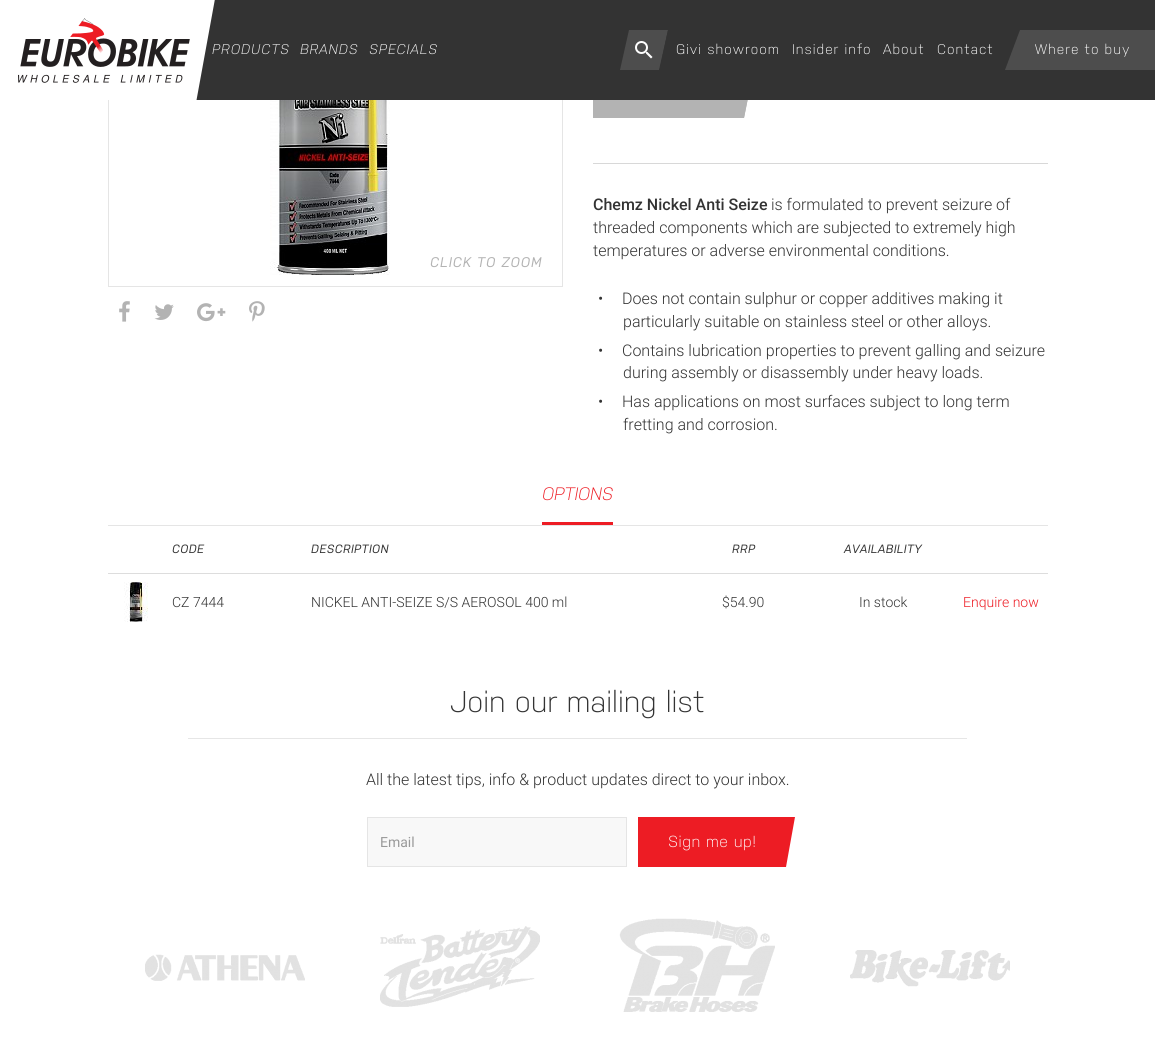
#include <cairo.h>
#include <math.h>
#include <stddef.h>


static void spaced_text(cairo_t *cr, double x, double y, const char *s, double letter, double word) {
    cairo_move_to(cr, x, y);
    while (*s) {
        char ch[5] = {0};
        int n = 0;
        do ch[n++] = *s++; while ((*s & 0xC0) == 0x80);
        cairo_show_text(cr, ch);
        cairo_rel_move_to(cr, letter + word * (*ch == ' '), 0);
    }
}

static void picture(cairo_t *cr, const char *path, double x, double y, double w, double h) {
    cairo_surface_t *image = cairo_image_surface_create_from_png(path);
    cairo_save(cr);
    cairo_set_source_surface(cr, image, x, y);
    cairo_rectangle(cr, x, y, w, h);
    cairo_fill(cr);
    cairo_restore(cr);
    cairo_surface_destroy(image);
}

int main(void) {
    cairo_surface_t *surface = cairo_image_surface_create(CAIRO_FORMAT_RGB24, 1155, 1062);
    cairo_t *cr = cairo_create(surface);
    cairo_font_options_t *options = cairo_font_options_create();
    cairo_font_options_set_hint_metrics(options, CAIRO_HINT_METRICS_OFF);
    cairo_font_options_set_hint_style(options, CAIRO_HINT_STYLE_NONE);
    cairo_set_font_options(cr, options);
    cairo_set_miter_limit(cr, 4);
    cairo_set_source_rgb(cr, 1, 1, 1);
    cairo_paint(cr);
    cairo_rectangle(cr, 108.5, -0.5, 454, 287);
    cairo_set_source_rgb(cr, 0.898, 0.898, 0.898);
    cairo_set_line_width(cr, 1);
    cairo_stroke(cr);
    cairo_set_source_rgb(cr, 0.702, 0.702, 0.702);
    cairo_rectangle(cr, 593, 100, 155, 18);
    cairo_fill(cr);
    cairo_set_source_rgb(cr, 1, 1, 1);
    cairo_new_path(cr);
    cairo_move_to(cr, 754, 118);
    cairo_line_to(cr, 744, 118);
    cairo_line_to(cr, 754, 68);
    cairo_close_path(cr);
    cairo_fill(cr);
    cairo_set_source_rgb(cr, 0.702, 0.702, 0.702);
    cairo_new_path(cr);
    cairo_move_to(cr, 744, 118);
    cairo_line_to(cr, 744, 68);
    cairo_line_to(cr, 754, 68);
    cairo_close_path(cr);
    cairo_fill(cr);
    cairo_set_source_rgb(cr, 0.2, 0.2, 0.2);
    cairo_rectangle(cr, 196, 0, 959, 100);
    cairo_fill(cr);
    picture(cr, "img1.png", 0, 0, 215, 100);
    cairo_select_font_face(cr, "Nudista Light", CAIRO_FONT_SLANT_ITALIC, CAIRO_FONT_WEIGHT_NORMAL);
    cairo_set_font_size(cr, 14);
    cairo_set_source_rgb(cr, 1, 1, 1);
    spaced_text(cr, 212, 54, "PRODUCTS", 1, 0);
    spaced_text(cr, 300, 54, "BRANDS", 1, 0);
    spaced_text(cr, 369, 54, "SPECIALS", 1, 0);
    picture(cr, "img2.png", 620, 30, 48, 40);
    cairo_save(cr);
    cairo_rectangle(cr, 620, 30, 48, 40);
    cairo_clip(cr);
    cairo_set_source_rgb(cr, 0.2, 0.2, 0.2);
    cairo_new_path(cr);
    cairo_move_to(cr, 668, 257);
    cairo_line_to(cr, 620, 257);
    cairo_line_to(cr, 668, 30);
    cairo_close_path(cr);
    cairo_fill(cr);
    cairo_restore(cr);
    cairo_select_font_face(cr, "Nudista Light", CAIRO_FONT_SLANT_NORMAL, CAIRO_FONT_WEIGHT_NORMAL);
    spaced_text(cr, 676, 54, "Givi showroom", 1, 0);
    spaced_text(cr, 792, 54, "Insider info", 1, 0);
    spaced_text(cr, 883, 54, "About", 1, 0);
    spaced_text(cr, 937, 54, "Contact", 1, 0);
    cairo_set_source_rgb(cr, 0.302, 0.302, 0.302);
    cairo_rectangle(cr, 1020, 30, 135, 40);
    cairo_fill(cr);
    cairo_new_path(cr);
    cairo_move_to(cr, 1020, 30);
    cairo_line_to(cr, 1020, 70);
    cairo_line_to(cr, 1005, 70);
    cairo_close_path(cr);
    cairo_fill(cr);
    cairo_set_source_rgb(cr, 1, 1, 1);
    spaced_text(cr, 1035, 54, "Where to buy", 1, 0);
    picture(cr, "img3.png", 270, 100, 120, 175);
    cairo_select_font_face(cr, "Nudista Medium", CAIRO_FONT_SLANT_ITALIC, CAIRO_FONT_WEIGHT_NORMAL);
    cairo_set_source_rgb(cr, 0.702, 0.702, 0.702);
    spaced_text(cr, 430, 267, "CLICK TO ZOOM", 1, 0);
    picture(cr, "img4.png", 119, 301, 11, 21);
    picture(cr, "img5.png", 154, 304, 20, 16);
    picture(cr, "img6.png", 197, 303, 29, 19);
    picture(cr, "img7.png", 249, 301, 16, 21);
    cairo_set_source_rgb(cr, 0.847, 0.847, 0.847);
    cairo_rectangle(cr, 593, 163, 455, 1);
    cairo_fill(cr);
    cairo_select_font_face(cr, "Roboto Medium", CAIRO_FONT_SLANT_NORMAL, CAIRO_FONT_WEIGHT_NORMAL);
    cairo_set_font_size(cr, 16);
    cairo_set_source_rgb(cr, 0.2, 0.2, 0.2);
    cairo_move_to(cr, 593, 210);
    cairo_show_text(cr, "Chemz Nickel Anti Seize");
    cairo_select_font_face(cr, "Roboto Light", CAIRO_FONT_SLANT_NORMAL, CAIRO_FONT_WEIGHT_NORMAL);
    cairo_move_to(cr, 771, 210);
    cairo_show_text(cr, "is formulated to prevent seizure of");
    cairo_move_to(cr, 593, 233);
    cairo_show_text(cr, "threaded components which are subjected to extremely high");
    cairo_move_to(cr, 593, 256);
    cairo_show_text(cr, "temperatures or adverse environmental conditions.");
    cairo_move_to(cr, 598, 304);
    cairo_show_text(cr, "•");
    cairo_move_to(cr, 622, 304);
    cairo_show_text(cr, "Does not contain sulphur or copper additives making it");
    cairo_move_to(cr, 623, 327);
    cairo_show_text(cr, "particularly suitable on stainless steel or other alloys.");
    cairo_move_to(cr, 598, 356);
    cairo_show_text(cr, "•");
    cairo_move_to(cr, 622, 356);
    cairo_show_text(cr, "Contains lubrication properties to prevent galling and seizure");
    cairo_move_to(cr, 623, 378);
    cairo_show_text(cr, "during assembly or disassembly under heavy loads.");
    cairo_move_to(cr, 598, 407);
    cairo_show_text(cr, "•");
    cairo_move_to(cr, 622, 407);
    cairo_show_text(cr, "Has applications on most surfaces subject to long term");
    cairo_move_to(cr, 623, 430);
    cairo_show_text(cr, "fretting and corrosion.");
    cairo_set_source_rgb(cr, 0.898, 0.898, 0.898);
    cairo_rectangle(cr, 108, 525, 940, 1);
    cairo_fill(cr);
    cairo_set_source_rgb(cr, 0.929, 0.11, 0.141);
    cairo_rectangle(cr, 542, 522, 71, 3);
    cairo_fill(cr);
    cairo_select_font_face(cr, "Nudista Light", CAIRO_FONT_SLANT_ITALIC, CAIRO_FONT_WEIGHT_NORMAL);
    cairo_set_font_size(cr, 18);
    cairo_move_to(cr, 542, 500);
    cairo_show_text(cr, "OPTIONS");
    cairo_select_font_face(cr, "Nudista Medium", CAIRO_FONT_SLANT_ITALIC, CAIRO_FONT_WEIGHT_NORMAL);
    cairo_set_font_size(cr, 12);
    cairo_set_source_rgb(cr, 0.2, 0.2, 0.2);
    spaced_text(cr, 172, 553, "CODE", 0.5, 0);
    spaced_text(cr, 311, 553, "DESCRIPTION", 0.5, 0);
    spaced_text(cr, 732, 553, "RRP", 0.5, 0);
    spaced_text(cr, 844, 553, "AVAILABILITY", 0.5, 0);
    picture(cr, "img8.png", 124, 582, 24, 40);
    cairo_select_font_face(cr, "Roboto Light", CAIRO_FONT_SLANT_NORMAL, CAIRO_FONT_WEIGHT_NORMAL);
    cairo_set_font_size(cr, 14);
    cairo_move_to(cr, 172, 607);
    cairo_show_text(cr, "CZ 7444");
    cairo_move_to(cr, 311, 607);
    cairo_show_text(cr, "NICKEL ANTI-SEIZE S/S AEROSOL 400 ml");
    cairo_move_to(cr, 722, 607);
    cairo_show_text(cr, "$54.90");
    cairo_move_to(cr, 859, 607);
    cairo_show_text(cr, "In stock");
    cairo_set_source_rgb(cr, 0.867, 0.867, 0.867);
    cairo_rectangle(cr, 108, 573, 940, 1);
    cairo_fill(cr);
    cairo_set_source_rgb(cr, 0.929, 0.11, 0.141);
    cairo_move_to(cr, 963, 607);
    cairo_show_text(cr, "Enquire now");
    cairo_set_source_rgb(cr, 0.902, 0.902, 0.902);
    cairo_rectangle(cr, 188, 738, 779, 1);
    cairo_fill(cr);
    cairo_select_font_face(cr, "Nudista Light", CAIRO_FONT_SLANT_NORMAL, CAIRO_FONT_WEIGHT_NORMAL);
    cairo_set_font_size(cr, 30);
    cairo_set_source_rgb(cr, 0.2, 0.2, 0.2);
    cairo_move_to(cr, 450, 712);
    cairo_show_text(cr, "Join our mailing list");
    cairo_select_font_face(cr, "Roboto Light", CAIRO_FONT_SLANT_NORMAL, CAIRO_FONT_WEIGHT_NORMAL);
    cairo_set_font_size(cr, 16);
    cairo_move_to(cr, 366, 785);
    cairo_show_text(cr, "All the latest tips, info & product updates direct to your inbox.");
    cairo_set_source_rgb(cr, 0.969, 0.969, 0.969);
    cairo_rectangle(cr, 367.5, 817.5, 259, 49);
    cairo_fill_preserve(cr);
    cairo_set_source_rgb(cr, 0.898, 0.898, 0.898);
    cairo_stroke(cr);
    cairo_select_font_face(cr, "Roboto", CAIRO_FONT_SLANT_NORMAL, CAIRO_FONT_WEIGHT_NORMAL);
    cairo_set_font_size(cr, 14);
    cairo_set_source_rgb(cr, 0.6, 0.6, 0.6);
    cairo_move_to(cr, 380, 847);
    cairo_show_text(cr, "Email");
    cairo_set_source_rgb(cr, 0.929, 0.11, 0.141);
    cairo_rectangle(cr, 638, 817, 148, 50);
    cairo_fill(cr);
    cairo_select_font_face(cr, "Nudista Light", CAIRO_FONT_SLANT_NORMAL, CAIRO_FONT_WEIGHT_NORMAL);
    cairo_set_font_size(cr, 16);
    cairo_set_source_rgb(cr, 1, 1, 1);
    spaced_text(cr, 668, 847, "Sign me up!", 0.5, 0);
    cairo_set_source_rgb(cr, 0.929, 0.11, 0.141);
    cairo_new_path(cr);
    cairo_move_to(cr, 786, 867);
    cairo_line_to(cr, 786, 817);
    cairo_line_to(cr, 795, 817);
    cairo_close_path(cr);
    cairo_fill(cr);
    picture(cr, "img9.png", 145, 954, 160, 27);
    picture(cr, "img10.png", 380, 926, 160, 81);
    picture(cr, "img11.png", 619, 918, 156, 94);
    picture(cr, "img12.png", 850, 950, 160, 37);
    cairo_surface_write_to_png(surface, "page.png");
    cairo_font_options_destroy(options);
    cairo_destroy(cr);
    cairo_surface_destroy(surface);
    return 0;
}
